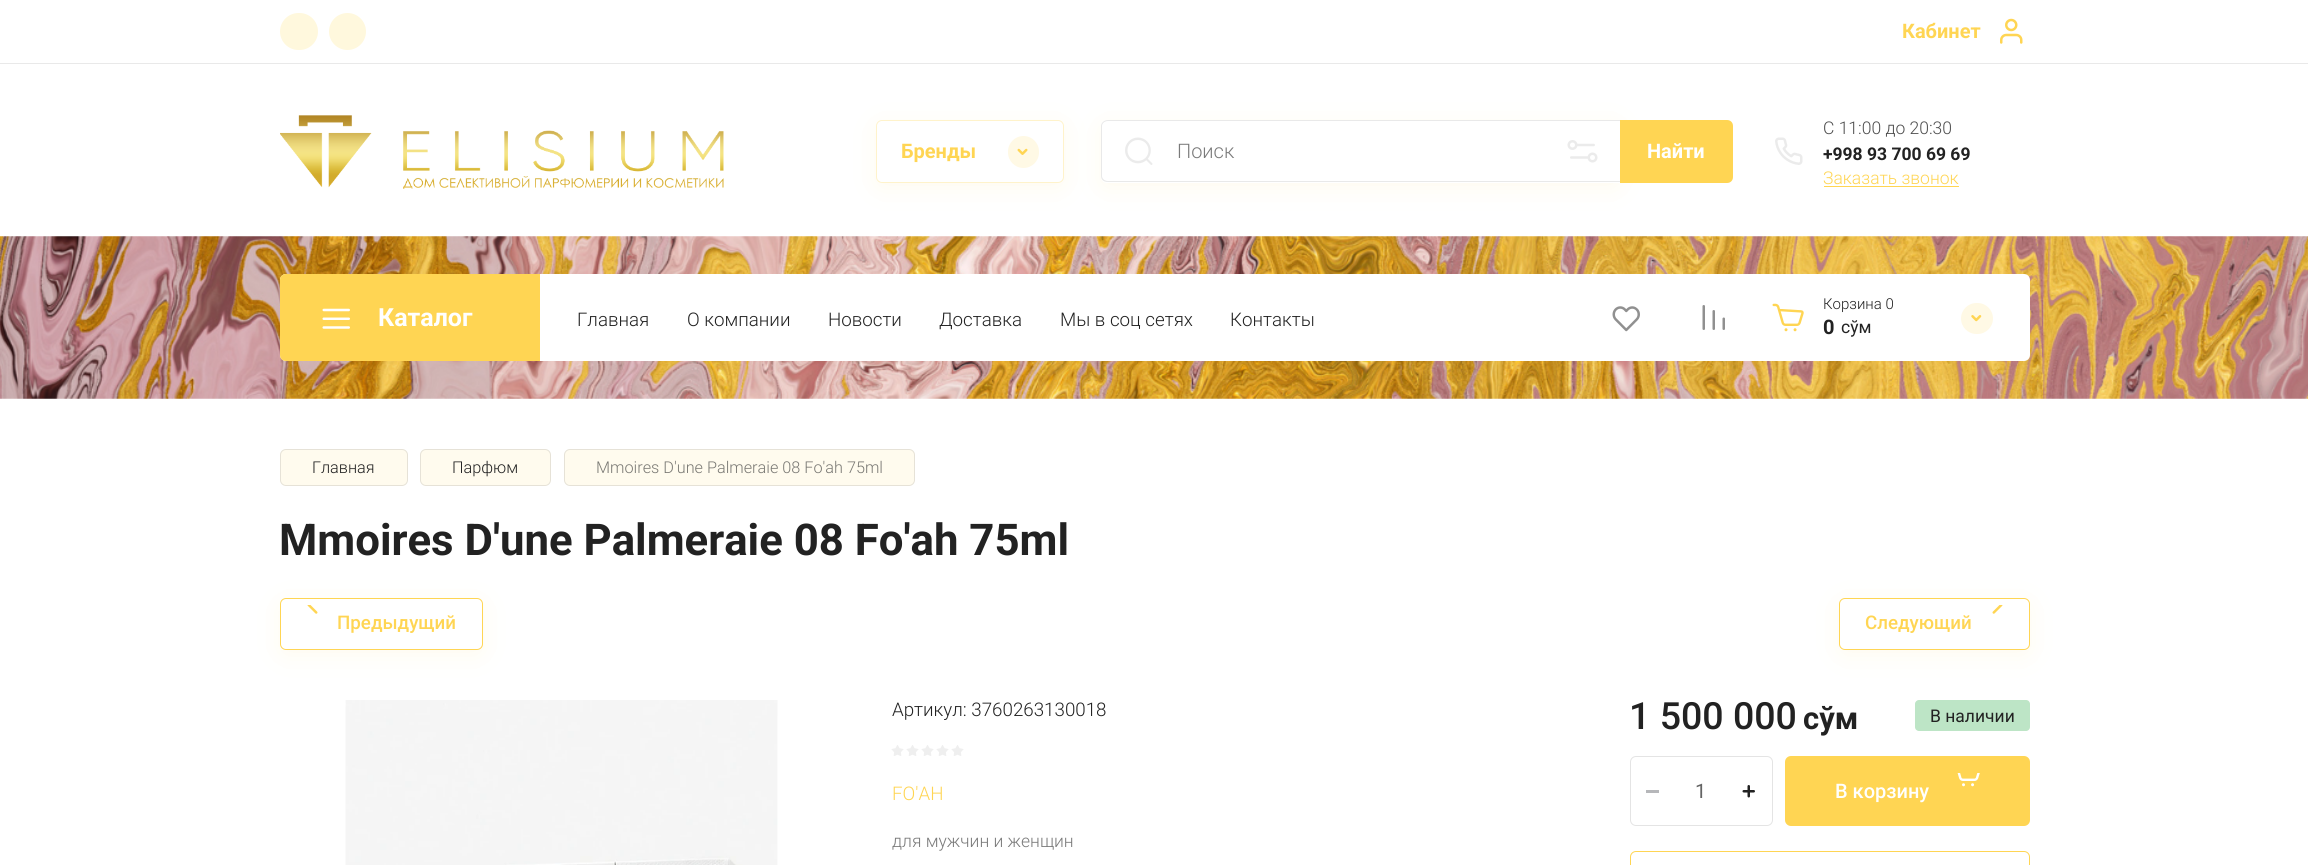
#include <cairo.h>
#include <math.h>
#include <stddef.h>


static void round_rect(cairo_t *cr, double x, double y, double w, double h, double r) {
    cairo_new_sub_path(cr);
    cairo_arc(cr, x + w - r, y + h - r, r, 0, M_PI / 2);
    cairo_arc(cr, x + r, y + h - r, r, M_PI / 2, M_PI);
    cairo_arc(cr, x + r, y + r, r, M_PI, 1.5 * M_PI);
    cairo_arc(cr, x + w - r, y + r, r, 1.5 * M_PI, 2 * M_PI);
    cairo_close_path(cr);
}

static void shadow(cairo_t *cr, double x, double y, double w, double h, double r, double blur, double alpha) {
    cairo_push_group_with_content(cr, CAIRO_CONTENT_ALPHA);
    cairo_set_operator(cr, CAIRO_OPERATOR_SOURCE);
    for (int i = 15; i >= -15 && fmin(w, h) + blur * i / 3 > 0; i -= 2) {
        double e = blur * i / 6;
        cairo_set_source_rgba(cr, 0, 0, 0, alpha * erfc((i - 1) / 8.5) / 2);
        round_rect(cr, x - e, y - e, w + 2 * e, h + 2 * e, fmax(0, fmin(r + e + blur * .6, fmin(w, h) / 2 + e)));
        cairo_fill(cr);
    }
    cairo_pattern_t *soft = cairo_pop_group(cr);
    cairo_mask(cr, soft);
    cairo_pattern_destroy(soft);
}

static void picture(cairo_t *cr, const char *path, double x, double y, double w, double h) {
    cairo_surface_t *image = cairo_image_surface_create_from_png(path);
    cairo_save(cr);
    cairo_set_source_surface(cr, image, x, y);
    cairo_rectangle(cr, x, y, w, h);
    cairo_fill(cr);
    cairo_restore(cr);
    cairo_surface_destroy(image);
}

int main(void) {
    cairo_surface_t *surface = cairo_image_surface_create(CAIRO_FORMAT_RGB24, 2308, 865);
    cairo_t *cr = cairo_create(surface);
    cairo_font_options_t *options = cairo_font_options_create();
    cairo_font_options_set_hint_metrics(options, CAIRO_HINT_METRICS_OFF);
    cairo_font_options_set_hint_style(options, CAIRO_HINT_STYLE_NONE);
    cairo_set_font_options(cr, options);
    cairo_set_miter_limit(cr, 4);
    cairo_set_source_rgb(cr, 1, 1, 1);
    cairo_paint(cr);
    cairo_set_source_rgb(cr, 0.914, 0.914, 0.914);
    cairo_rectangle(cr, 0, 63, 2308, 1);
    cairo_fill(cr);
    cairo_set_source_rgb(cr, 1, 0.969, 0.867);
    round_rect(cr, 280, 13, 38, 37, 18.5);
    cairo_fill(cr);
    cairo_arc(cr, 347.5, 31.5, 18.5, 0, 2 * M_PI);
    cairo_fill(cr);
    cairo_select_font_face(cr, "Roboto", CAIRO_FONT_SLANT_NORMAL, CAIRO_FONT_WEIGHT_BOLD);
    cairo_set_font_size(cr, 20);
    cairo_set_source_rgb(cr, 1, 0.835, 0.325);
    cairo_move_to(cr, 1902, 38);
    cairo_show_text(cr, "Кабинет");
    picture(cr, "img1.png", 2000, 18, 23, 26);
    picture(cr, "img2.png", 280, 115, 444, 74);
    cairo_new_path(cr);
    cairo_move_to(cr, 1620, 120);
    cairo_line_to(cr, 1727, 120);
    cairo_curve_to(cr, 1730.5, 120, 1733, 122.5, 1733, 126);
    cairo_line_to(cr, 1733, 177);
    cairo_curve_to(cr, 1733, 180.5, 1730.5, 183, 1727, 183);
    cairo_line_to(cr, 1620, 183);
    cairo_close_path(cr);
    cairo_fill(cr);
    cairo_set_source_rgb(cr, 1, 0.835, 0.325);
    shadow(cr, 1101, 125, 519, 63, 6, 12.5, 0.1);
    cairo_set_source_rgb(cr, 1, 1, 1);
    cairo_new_path(cr);
    cairo_move_to(cr, 1107, 120);
    cairo_line_to(cr, 1620, 120);
    cairo_line_to(cr, 1620, 183);
    cairo_line_to(cr, 1107, 183);
    cairo_curve_to(cr, 1103.5, 183, 1101, 180.5, 1101, 177);
    cairo_line_to(cr, 1101, 126);
    cairo_curve_to(cr, 1101, 122.5, 1103.5, 120, 1107, 120);
    cairo_close_path(cr);
    cairo_fill(cr);
    cairo_set_source_rgb(cr, 0.914, 0.914, 0.914);
    cairo_set_fill_rule(cr, CAIRO_FILL_RULE_EVEN_ODD);
    cairo_new_path(cr);
    cairo_move_to(cr, 1108, 120);
    cairo_line_to(cr, 1620, 120);
    cairo_line_to(cr, 1620, 182);
    cairo_line_to(cr, 1108, 182);
    cairo_curve_to(cr, 1104, 182, 1101, 180, 1101, 176);
    cairo_line_to(cr, 1101, 126);
    cairo_curve_to(cr, 1101, 123, 1104, 120, 1108, 120);
    cairo_close_path(cr);
    cairo_move_to(cr, 1108, 121);
    cairo_line_to(cr, 1620, 121);
    cairo_line_to(cr, 1620, 181);
    cairo_line_to(cr, 1108, 181);
    cairo_curve_to(cr, 1105, 181, 1102, 179, 1102, 176);
    cairo_line_to(cr, 1102, 126);
    cairo_curve_to(cr, 1102, 123, 1105, 121, 1108, 121);
    cairo_close_path(cr);
    cairo_fill(cr);
    cairo_save(cr);
    cairo_new_path(cr);
    cairo_move_to(cr, 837, 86);
    cairo_line_to(cr, 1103, 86);
    cairo_line_to(cr, 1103, 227);
    cairo_line_to(cr, 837, 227);
    cairo_close_path(cr);
    cairo_move_to(cr, 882, 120);
    cairo_line_to(cr, 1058, 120);
    cairo_curve_to(cr, 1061.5, 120, 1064, 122.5, 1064, 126);
    cairo_line_to(cr, 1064, 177);
    cairo_curve_to(cr, 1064, 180.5, 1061.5, 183, 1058, 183);
    cairo_line_to(cr, 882, 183);
    cairo_curve_to(cr, 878.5, 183, 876, 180.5, 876, 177);
    cairo_line_to(cr, 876, 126);
    cairo_curve_to(cr, 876, 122.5, 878.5, 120, 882, 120);
    cairo_close_path(cr);
    cairo_clip(cr);
    cairo_set_source_rgb(cr, 1, 0.835, 0.325);
    shadow(cr, 876, 125, 188, 63, 6, 12.5, 0.1);
    cairo_restore(cr);
    round_rect(cr, 876.5, 120.5, 187, 62, 5.5);
    cairo_set_source_rgba(cr, 1, 0.835, 0.325, 0.3);
    cairo_set_line_width(cr, 1);
    cairo_stroke(cr);
    cairo_set_source_rgb(cr, 1, 0.835, 0.325);
    cairo_move_to(cr, 901, 158);
    cairo_show_text(cr, "Бренды");
    cairo_set_source_rgb(cr, 1, 0.976, 0.898);
    round_rect(cr, 1008, 136, 31, 32, 15.5);
    cairo_fill(cr);
    picture(cr, "img3.png", 1017, 148, 11, 7);
    picture(cr, "img4.png", 1567, 140, 31, 23);
    picture(cr, "img5.png", 1125, 137, 28, 28);
    cairo_select_font_face(cr, "Roboto Light", CAIRO_FONT_SLANT_NORMAL, CAIRO_FONT_WEIGHT_NORMAL);
    cairo_set_source_rgb(cr, 0.478, 0.478, 0.478);
    cairo_move_to(cr, 1177, 158);
    cairo_show_text(cr, "Поиск");
    cairo_select_font_face(cr, "Roboto", CAIRO_FONT_SLANT_NORMAL, CAIRO_FONT_WEIGHT_BOLD);
    cairo_set_source_rgb(cr, 1, 1, 1);
    cairo_move_to(cr, 1647, 158);
    cairo_show_text(cr, "Найти");
    picture(cr, "img6.png", 1775, 137, 28, 28);
    cairo_select_font_face(cr, "Roboto Light", CAIRO_FONT_SLANT_NORMAL, CAIRO_FONT_WEIGHT_NORMAL);
    cairo_set_font_size(cr, 17.5);
    cairo_set_source_rgb(cr, 0.306, 0.306, 0.306);
    cairo_move_to(cr, 1823, 134);
    cairo_show_text(cr, "C 11:00 до 20:30");
    cairo_select_font_face(cr, "Roboto", CAIRO_FONT_SLANT_NORMAL, CAIRO_FONT_WEIGHT_BOLD);
    cairo_set_source_rgb(cr, 0.133, 0.133, 0.133);
    cairo_move_to(cr, 1823, 160);
    cairo_show_text(cr, "+998 93 700 69 69");
    cairo_select_font_face(cr, "Roboto Light", CAIRO_FONT_SLANT_NORMAL, CAIRO_FONT_WEIGHT_NORMAL);
    cairo_set_source_rgb(cr, 1, 0.835, 0.325);
    cairo_move_to(cr, 1823, 184);
    cairo_show_text(cr, "Заказать звонок");
    cairo_rectangle(cr, 1824, 186, 135, 1);
    cairo_fill(cr);
    picture(cr, "img7.png", 0, 236, 2308, 163);
    cairo_set_source_rgb(cr, 1, 1, 1);
    round_rect(cr, 280, 274, 1750, 87, 6);
    cairo_fill(cr);
    cairo_set_source_rgb(cr, 1, 0.835, 0.325);
    cairo_new_path(cr);
    cairo_move_to(cr, 286, 274);
    cairo_line_to(cr, 540, 274);
    cairo_line_to(cr, 540, 361);
    cairo_line_to(cr, 286, 361);
    cairo_curve_to(cr, 282.5, 361, 280, 358.5, 280, 355);
    cairo_line_to(cr, 280, 280);
    cairo_curve_to(cr, 280, 276.5, 282.5, 274, 286, 274);
    cairo_close_path(cr);
    cairo_fill(cr);
    picture(cr, "img8.png", 322, 308, 28, 21);
    cairo_select_font_face(cr, "Roboto", CAIRO_FONT_SLANT_NORMAL, CAIRO_FONT_WEIGHT_BOLD);
    cairo_set_font_size(cr, 25);
    cairo_set_source_rgb(cr, 1, 1, 1);
    cairo_move_to(cr, 378, 326);
    cairo_show_text(cr, "Каталог");
    cairo_select_font_face(cr, "Roboto Light", CAIRO_FONT_SLANT_NORMAL, CAIRO_FONT_WEIGHT_NORMAL);
    cairo_set_font_size(cr, 18.75);
    cairo_set_source_rgb(cr, 0.133, 0.133, 0.133);
    cairo_move_to(cr, 577, 326);
    cairo_show_text(cr, "Главная");
    cairo_move_to(cr, 687, 326);
    cairo_show_text(cr, "О компании");
    cairo_move_to(cr, 828, 326);
    cairo_show_text(cr, "Новости");
    cairo_move_to(cr, 939, 326);
    cairo_show_text(cr, "Доставка");
    cairo_move_to(cr, 1060, 326);
    cairo_show_text(cr, "Мы в соц сетях");
    cairo_move_to(cr, 1230, 326);
    cairo_show_text(cr, "Контакты");
    picture(cr, "img9.png", 1612, 306, 28, 26);
    cairo_set_source_rgb(cr, 1, 1, 1);
    cairo_arc(cr, 1645.5, 298.5, 12.5, 0, 2 * M_PI);
    cairo_fill(cr);
    picture(cr, "img10.png", 1702, 305, 23, 25);
    picture(cr, "img11.png", 1772, 303, 32, 29);
    cairo_set_font_size(cr, 15);
    cairo_set_source_rgb(cr, 0.133, 0.133, 0.133);
    cairo_move_to(cr, 1823, 309);
    cairo_show_text(cr, "Корзина 0");
    cairo_set_source_rgb(cr, 1, 0.976, 0.898);
    round_rect(cr, 1961, 303, 32, 31, 15.5);
    cairo_fill(cr);
    picture(cr, "img12.png", 1971, 315, 11, 7);
    cairo_select_font_face(cr, "Roboto", CAIRO_FONT_SLANT_NORMAL, CAIRO_FONT_WEIGHT_BOLD);
    cairo_set_font_size(cr, 20);
    cairo_set_source_rgb(cr, 0.133, 0.133, 0.133);
    cairo_move_to(cr, 1823, 334);
    cairo_show_text(cr, "0");
    cairo_select_font_face(cr, "Roboto", CAIRO_FONT_SLANT_NORMAL, CAIRO_FONT_WEIGHT_NORMAL);
    cairo_set_font_size(cr, 17.5);
    cairo_move_to(cr, 1841, 333);
    cairo_show_text(cr, "сўм");
    cairo_set_source_rgb(cr, 1, 0.984, 0.933);
    round_rect(cr, 280, 449, 128, 37, 6);
    cairo_fill(cr);
    round_rect(cr, 280.5, 449.5, 127, 36, 5.5);
    cairo_set_source_rgba(cr, 0, 0, 0, 0.1);
    cairo_stroke(cr);
    cairo_select_font_face(cr, "Roboto Light", CAIRO_FONT_SLANT_NORMAL, CAIRO_FONT_WEIGHT_NORMAL);
    cairo_set_font_size(cr, 16.25);
    cairo_set_source_rgb(cr, 0.133, 0.133, 0.133);
    cairo_move_to(cr, 312, 473);
    cairo_show_text(cr, "Главная");
    cairo_set_source_rgb(cr, 1, 0.984, 0.933);
    round_rect(cr, 420, 449, 131, 37, 6);
    cairo_fill(cr);
    round_rect(cr, 420.5, 449.5, 130, 36, 5.5);
    cairo_set_source_rgba(cr, 0, 0, 0, 0.1);
    cairo_stroke(cr);
    cairo_set_source_rgb(cr, 0.133, 0.133, 0.133);
    cairo_move_to(cr, 452, 473);
    cairo_show_text(cr, "Парфюм");
    cairo_set_source_rgb(cr, 1, 0.984, 0.933);
    round_rect(cr, 564, 449, 351, 37, 6);
    cairo_fill(cr);
    round_rect(cr, 564.5, 449.5, 350, 36, 5.5);
    cairo_set_source_rgba(cr, 0, 0, 0, 0.1);
    cairo_stroke(cr);
    cairo_set_source_rgb(cr, 0.478, 0.475, 0.455);
    cairo_move_to(cr, 596, 473);
    cairo_show_text(cr, "Mmoires D'une Palmeraie 08 Fo'ah 75ml");
    cairo_select_font_face(cr, "Roboto", CAIRO_FONT_SLANT_NORMAL, CAIRO_FONT_WEIGHT_BOLD);
    cairo_set_font_size(cr, 43.75);
    cairo_set_source_rgb(cr, 0.133, 0.133, 0.133);
    cairo_move_to(cr, 279, 555);
    cairo_show_text(cr, "Mmoires D'une Palmeraie 08 Fo'ah 75ml");
    cairo_save(cr);
    cairo_new_path(cr);
    cairo_move_to(cr, 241, 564);
    cairo_line_to(cr, 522, 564);
    cairo_line_to(cr, 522, 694);
    cairo_line_to(cr, 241, 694);
    cairo_close_path(cr);
    cairo_move_to(cr, 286, 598);
    cairo_line_to(cr, 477, 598);
    cairo_curve_to(cr, 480.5, 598, 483, 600.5, 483, 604);
    cairo_line_to(cr, 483, 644);
    cairo_curve_to(cr, 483, 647.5, 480.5, 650, 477, 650);
    cairo_line_to(cr, 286, 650);
    cairo_curve_to(cr, 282.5, 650, 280, 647.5, 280, 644);
    cairo_line_to(cr, 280, 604);
    cairo_curve_to(cr, 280, 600.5, 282.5, 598, 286, 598);
    cairo_close_path(cr);
    cairo_clip(cr);
    cairo_set_source_rgb(cr, 1, 0.835, 0.325);
    shadow(cr, 280, 603, 203, 52, 6, 12.5, 0.1);
    cairo_restore(cr);
    round_rect(cr, 280.5, 598.5, 202, 51, 5.5);
    cairo_set_source_rgb(cr, 1, 0.835, 0.325);
    cairo_stroke(cr);
    picture(cr, "img13.png", 307, 605, 11, 9);
    cairo_select_font_face(cr, "Roboto Medium", CAIRO_FONT_SLANT_NORMAL, CAIRO_FONT_WEIGHT_NORMAL);
    cairo_set_font_size(cr, 18.75);
    cairo_move_to(cr, 337, 629);
    cairo_show_text(cr, "Предыдущий");
    cairo_save(cr);
    cairo_new_path(cr);
    cairo_move_to(cr, 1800, 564);
    cairo_line_to(cr, 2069, 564);
    cairo_line_to(cr, 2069, 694);
    cairo_line_to(cr, 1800, 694);
    cairo_close_path(cr);
    cairo_move_to(cr, 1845, 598);
    cairo_line_to(cr, 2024, 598);
    cairo_curve_to(cr, 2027.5, 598, 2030, 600.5, 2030, 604);
    cairo_line_to(cr, 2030, 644);
    cairo_curve_to(cr, 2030, 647.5, 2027.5, 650, 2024, 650);
    cairo_line_to(cr, 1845, 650);
    cairo_curve_to(cr, 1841.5, 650, 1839, 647.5, 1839, 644);
    cairo_line_to(cr, 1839, 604);
    cairo_curve_to(cr, 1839, 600.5, 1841.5, 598, 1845, 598);
    cairo_close_path(cr);
    cairo_clip(cr);
    cairo_set_source_rgb(cr, 1, 0.835, 0.325);
    shadow(cr, 1839, 603, 191, 52, 6, 12.5, 0.1);
    cairo_restore(cr);
    round_rect(cr, 1839.5, 598.5, 190, 51, 5.5);
    cairo_stroke(cr);
    picture(cr, "img14.png", 1992, 605, 11, 9);
    cairo_move_to(cr, 1865, 629);
    cairo_show_text(cr, "Следующий");
    picture(cr, "img15.png", 345, 700, 433, 165);
    cairo_select_font_face(cr, "Roboto Light", CAIRO_FONT_SLANT_NORMAL, CAIRO_FONT_WEIGHT_NORMAL);
    cairo_set_source_rgb(cr, 0.133, 0.133, 0.133);
    cairo_move_to(cr, 892, 716);
    cairo_show_text(cr, "Артикул: 3760263130018");
    picture(cr, "img16.png", 891, 745, 73, 11);
    cairo_set_source_rgb(cr, 1, 0.835, 0.325);
    cairo_move_to(cr, 892, 800);
    cairo_show_text(cr, "FO'AH");
    cairo_set_font_size(cr, 17.5);
    cairo_set_source_rgb(cr, 0.478, 0.478, 0.478);
    cairo_move_to(cr, 892, 847);
    cairo_show_text(cr, "для мужчин и женщин");
    cairo_select_font_face(cr, "Roboto Medium", CAIRO_FONT_SLANT_NORMAL, CAIRO_FONT_WEIGHT_NORMAL);
    cairo_set_font_size(cr, 37.5);
    cairo_set_source_rgb(cr, 0.133, 0.133, 0.133);
    cairo_move_to(cr, 1629, 729);
    cairo_show_text(cr, "1 500 000");
    cairo_select_font_face(cr, "Roboto", CAIRO_FONT_SLANT_NORMAL, CAIRO_FONT_WEIGHT_BOLD);
    cairo_set_font_size(cr, 31);
    cairo_move_to(cr, 1803, 729);
    cairo_show_text(cr, "сўм");
    cairo_set_source_rgb(cr, 0.741, 0.898, 0.776);
    round_rect(cr, 1915, 700, 115, 31, 4);
    cairo_fill(cr);
    cairo_select_font_face(cr, "Roboto", CAIRO_FONT_SLANT_NORMAL, CAIRO_FONT_WEIGHT_NORMAL);
    cairo_set_font_size(cr, 17.5);
    cairo_set_source_rgb(cr, 0.133, 0.133, 0.133);
    cairo_move_to(cr, 1930, 722);
    cairo_show_text(cr, "В наличии");
    round_rect(cr, 1630.5, 756.5, 142, 69, 5.5);
    cairo_set_source_rgb(cr, 0.894, 0.894, 0.894);
    cairo_stroke(cr);
    cairo_set_source_rgb(cr, 0.714, 0.718, 0.729);
    cairo_rectangle(cr, 1646, 790, 13, 3);
    cairo_fill(cr);
    cairo_set_font_size(cr, 20);
    cairo_set_source_rgb(cr, 0.392, 0.392, 0.392);
    cairo_move_to(cr, 1695, 798);
    cairo_show_text(cr, "1");
    picture(cr, "img17.png", 1742, 785, 13, 13);
    cairo_set_source_rgb(cr, 1, 0.835, 0.325);
    round_rect(cr, 1785, 756, 245, 70, 6);
    cairo_fill(cr);
    picture(cr, "img18.png", 1957, 773, 23, 14);
    cairo_select_font_face(cr, "Roboto Medium", CAIRO_FONT_SLANT_NORMAL, CAIRO_FONT_WEIGHT_NORMAL);
    cairo_set_source_rgb(cr, 1, 1, 1);
    cairo_move_to(cr, 1835, 798);
    cairo_show_text(cr, "В корзину");
    round_rect(cr, 1630.5, 851.5, 399, 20, 5.5);
    cairo_set_source_rgb(cr, 1, 0.835, 0.325);
    cairo_stroke(cr);
    cairo_surface_write_to_png(surface, "page.png");
    cairo_font_options_destroy(options);
    cairo_destroy(cr);
    cairo_surface_destroy(surface);
    return 0;
}
